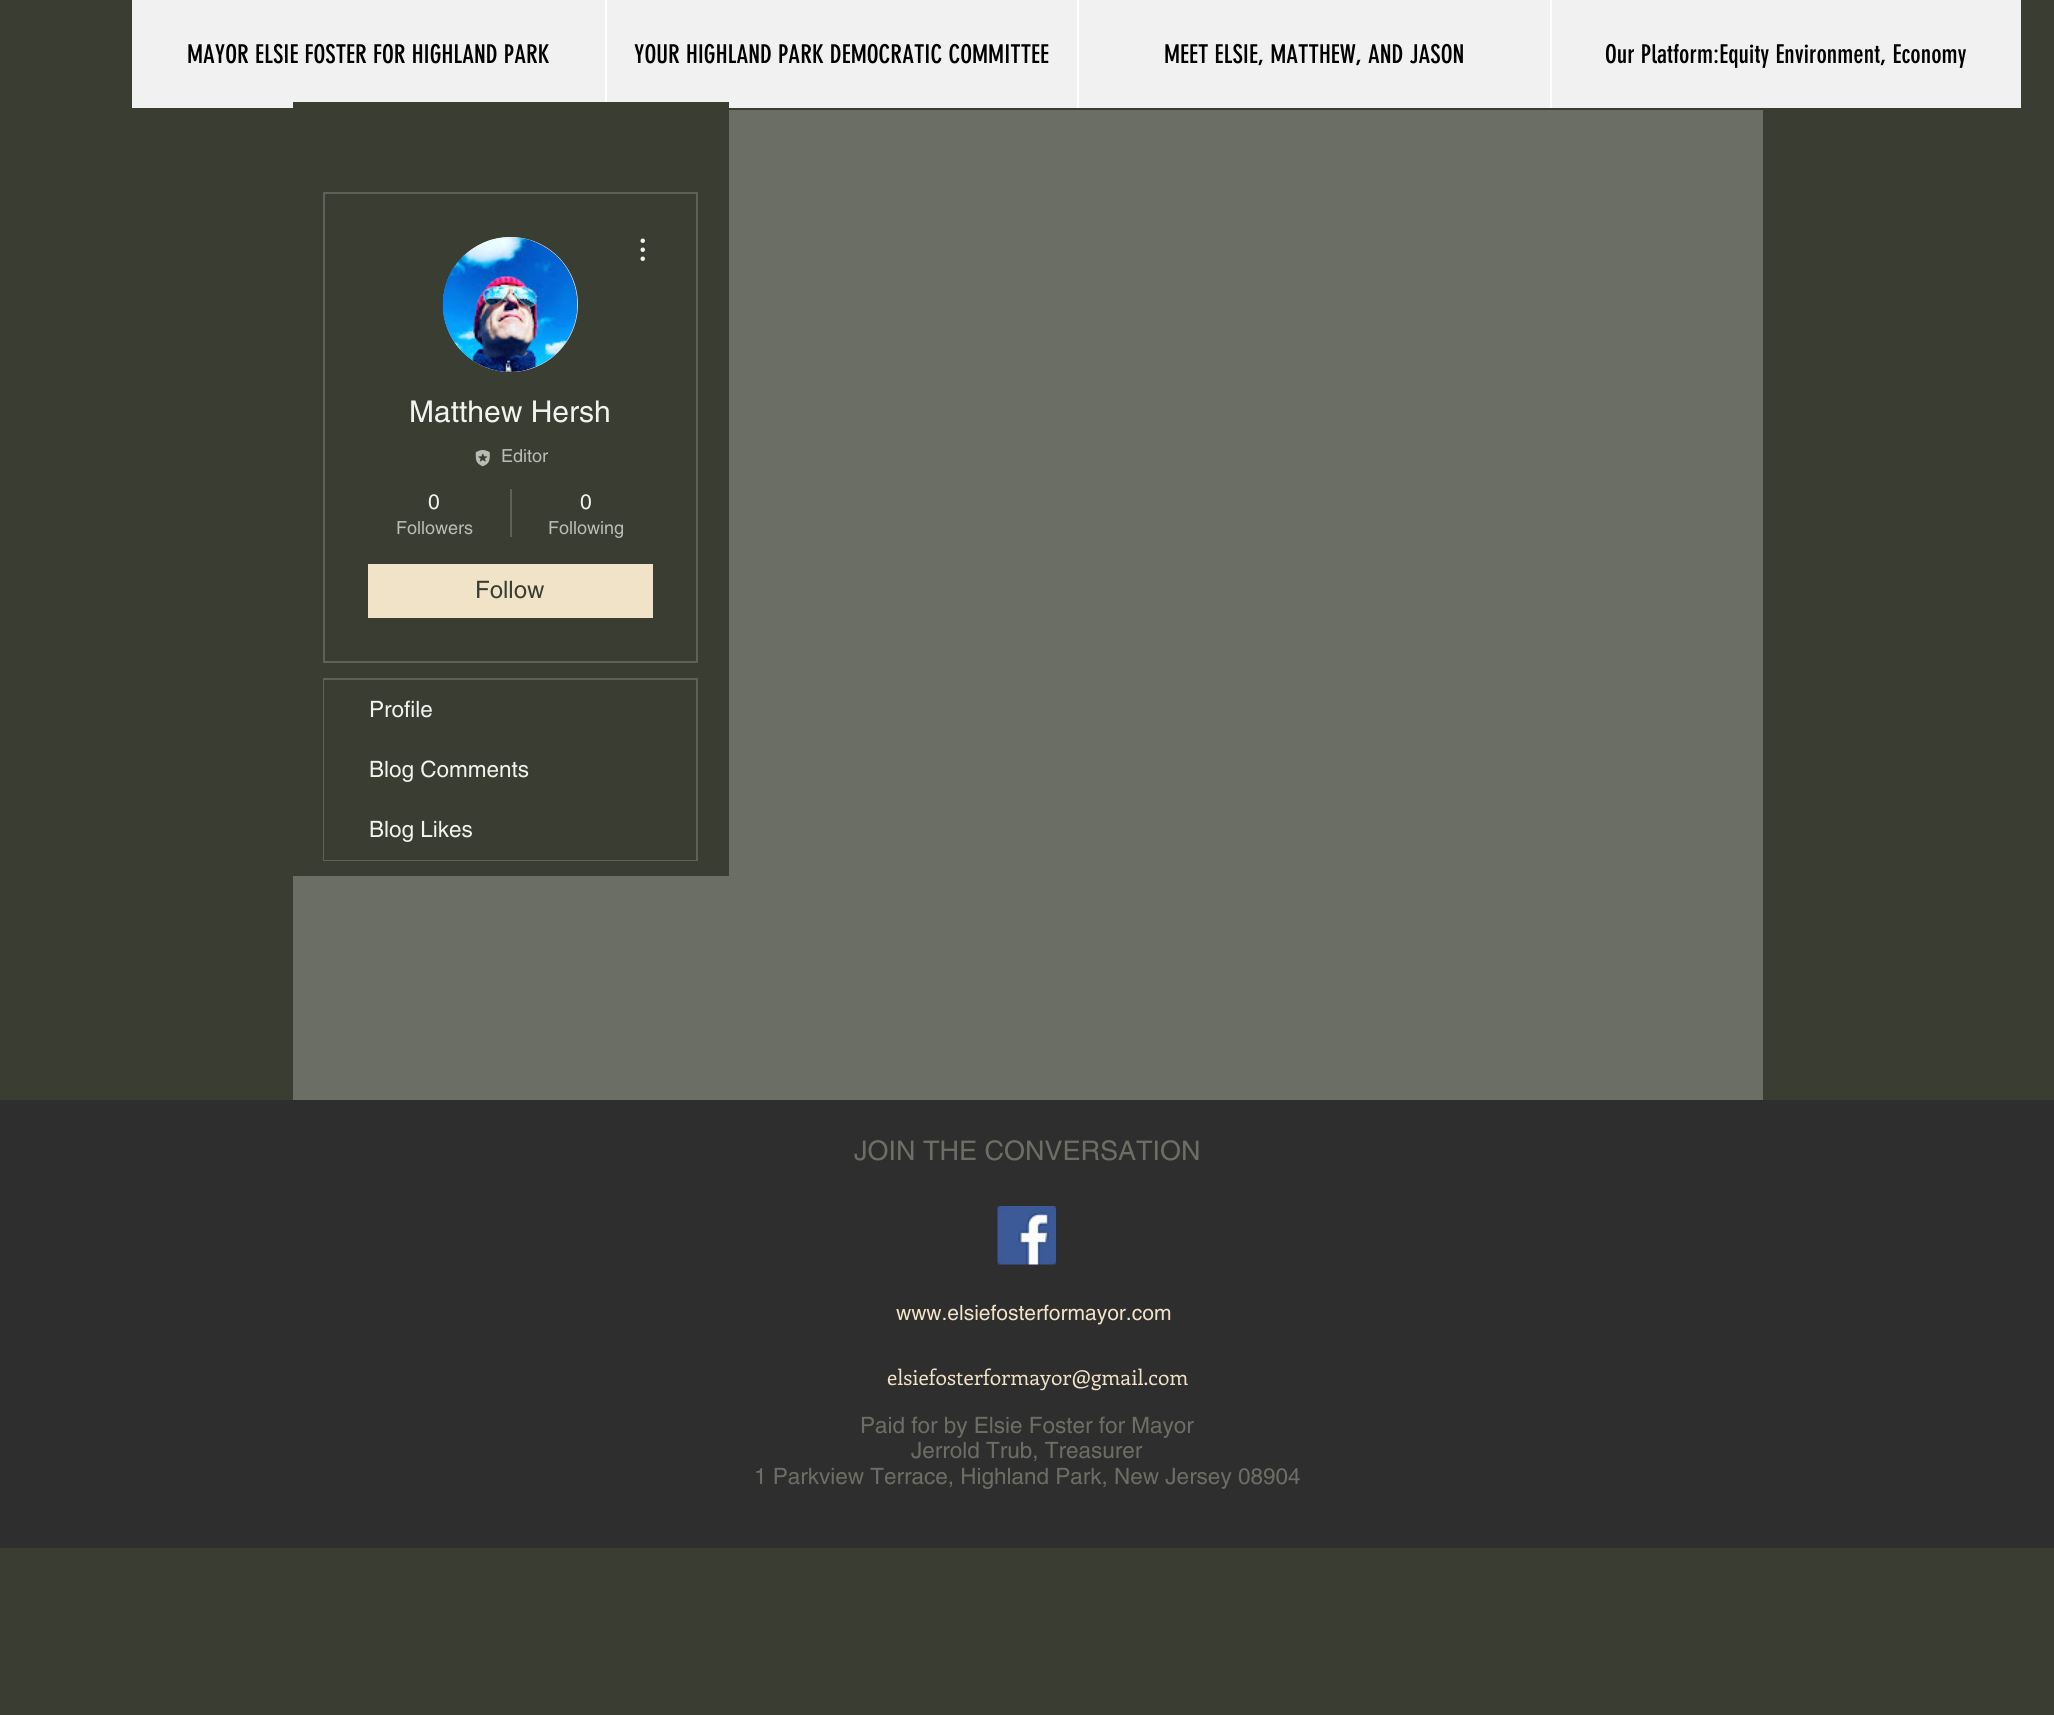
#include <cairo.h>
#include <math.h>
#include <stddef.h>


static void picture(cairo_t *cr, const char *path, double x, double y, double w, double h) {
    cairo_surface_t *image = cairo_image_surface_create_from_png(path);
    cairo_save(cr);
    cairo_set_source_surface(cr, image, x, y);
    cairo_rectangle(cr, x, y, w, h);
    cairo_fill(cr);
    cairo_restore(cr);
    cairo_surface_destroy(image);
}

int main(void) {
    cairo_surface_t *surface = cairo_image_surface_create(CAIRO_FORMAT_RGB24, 2054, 1715);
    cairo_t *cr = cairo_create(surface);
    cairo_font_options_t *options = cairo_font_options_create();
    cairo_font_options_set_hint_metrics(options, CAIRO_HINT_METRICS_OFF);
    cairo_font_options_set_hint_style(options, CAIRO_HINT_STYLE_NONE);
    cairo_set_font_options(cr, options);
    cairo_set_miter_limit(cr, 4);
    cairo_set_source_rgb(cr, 0.224, 0.239, 0.196);
    cairo_paint(cr);
    cairo_set_source_rgb(cr, 0.945, 0.945, 0.945);
    cairo_rectangle(cr, 132, 0, 1889, 108);
    cairo_fill(cr);
    cairo_select_font_face(cr, "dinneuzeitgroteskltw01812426", CAIRO_FONT_SLANT_NORMAL, CAIRO_FONT_WEIGHT_NORMAL);
    cairo_set_font_size(cr, 25.5);
    cairo_set_source_rgb(cr, 0, 0, 0);
    cairo_move_to(cr, 187, 63);
    cairo_show_text(cr, "MAYOR ELSIE FOSTER FOR HIGHLAND PARK");
    cairo_set_source_rgb(cr, 1, 1, 1);
    cairo_rectangle(cr, 605, 0, 2, 108);
    cairo_fill(cr);
    cairo_set_source_rgb(cr, 0, 0, 0);
    cairo_move_to(cr, 634, 63);
    cairo_show_text(cr, "YOUR HIGHLAND PARK DEMOCRATIC COMMITTEE");
    cairo_set_source_rgb(cr, 1, 1, 1);
    cairo_rectangle(cr, 1077, 0, 2, 108);
    cairo_fill(cr);
    cairo_set_source_rgb(cr, 0, 0, 0);
    cairo_move_to(cr, 1164, 63);
    cairo_show_text(cr, "MEET ELSIE, MATTHEW, AND JASON");
    cairo_set_source_rgb(cr, 1, 1, 1);
    cairo_rectangle(cr, 1550, 0, 2, 108);
    cairo_fill(cr);
    cairo_set_source_rgb(cr, 0, 0, 0);
    cairo_move_to(cr, 1605, 63);
    cairo_show_text(cr, "Our Platform:Equity Environment, Economy");
    cairo_set_source_rgb(cr, 0.416, 0.431, 0.392);
    cairo_rectangle(cr, 293, 110, 1470, 990);
    cairo_fill(cr);
    cairo_set_source_rgb(cr, 0.224, 0.239, 0.196);
    cairo_rectangle(cr, 293, 102, 436, 774);
    cairo_fill(cr);
    cairo_rectangle(cr, 324, 193, 373, 469);
    cairo_set_source_rgb(cr, 0.369, 0.38, 0.345);
    cairo_stroke(cr);
    cairo_set_source_rgb(cr, 0.847, 0.847, 0.847);
    cairo_arc(cr, 510.5, 304.5, 67.5, 0, 2 * M_PI);
    cairo_fill(cr);
    picture(cr, "img1.png", 442, 237, 136, 135);
    picture(cr, "img2.png", 640, 238, 5, 23);
    cairo_select_font_face(cr, "helvetica", CAIRO_FONT_SLANT_NORMAL, CAIRO_FONT_WEIGHT_NORMAL);
    cairo_set_font_size(cr, 30);
    cairo_set_source_rgb(cr, 0.945, 0.953, 0.933);
    cairo_move_to(cr, 409, 422);
    cairo_show_text(cr, "Matthew Hersh");
    picture(cr, "img3.png", 475, 450, 15, 17);
    cairo_set_font_size(cr, 18);
    cairo_set_source_rgb(cr, 0.729, 0.737, 0.714);
    cairo_move_to(cr, 501, 462);
    cairo_show_text(cr, "Editor");
    cairo_set_font_size(cr, 21);
    cairo_set_source_rgb(cr, 0.945, 0.953, 0.933);
    cairo_move_to(cr, 428, 509);
    cairo_show_text(cr, "0");
    cairo_set_font_size(cr, 18);
    cairo_set_source_rgb(cr, 0.729, 0.737, 0.714);
    cairo_move_to(cr, 396, 534);
    cairo_show_text(cr, "Followers");
    cairo_set_source_rgb(cr, 0.369, 0.38, 0.345);
    cairo_rectangle(cr, 510, 489, 2, 48);
    cairo_fill(cr);
    cairo_set_font_size(cr, 21);
    cairo_set_source_rgb(cr, 0.945, 0.953, 0.933);
    cairo_move_to(cr, 580, 509);
    cairo_show_text(cr, "0");
    cairo_set_font_size(cr, 18);
    cairo_set_source_rgb(cr, 0.729, 0.737, 0.714);
    cairo_move_to(cr, 548, 534);
    cairo_show_text(cr, "Following");
    cairo_set_source_rgb(cr, 0.945, 0.89, 0.784);
    cairo_rectangle(cr, 368, 564, 285, 54);
    cairo_fill(cr);
    cairo_set_font_size(cr, 24);
    cairo_set_source_rgb(cr, 0.224, 0.239, 0.196);
    cairo_move_to(cr, 475, 598);
    cairo_show_text(cr, "Follow");
    cairo_rectangle(cr, 324, 679, 373, 181);
    cairo_set_source_rgb(cr, 0.369, 0.38, 0.345);
    cairo_stroke(cr);
    cairo_set_source_rgb(cr, 0.224, 0.239, 0.196);
    cairo_rectangle(cr, 324, 680, 1, 120);
    cairo_fill(cr);
    cairo_set_font_size(cr, 22.5);
    cairo_set_source_rgb(cr, 0.945, 0.953, 0.933);
    cairo_move_to(cr, 369, 717);
    cairo_show_text(cr, "Profile");
    cairo_move_to(cr, 369, 777);
    cairo_show_text(cr, "Blog Comments");
    cairo_set_source_rgb(cr, 0.224, 0.239, 0.196);
    cairo_rectangle(cr, 324, 800, 372, 60);
    cairo_fill(cr);
    cairo_set_source_rgb(cr, 0.945, 0.953, 0.933);
    cairo_move_to(cr, 369, 837);
    cairo_show_text(cr, "Blog Likes");
    cairo_set_source_rgb(cr, 0.184, 0.18, 0.18);
    cairo_rectangle(cr, 0, 1100, 2054, 448);
    cairo_fill(cr);
    cairo_set_font_size(cr, 27);
    cairo_set_source_rgb(cr, 0.416, 0.431, 0.392);
    cairo_move_to(cr, 854, 1160);
    cairo_show_text(cr, "JOIN THE CONVERSATION");
    picture(cr, "img4.png", 997, 1206, 59, 59);
    cairo_set_font_size(cr, 21);
    cairo_set_source_rgb(cr, 0.945, 0.89, 0.784);
    cairo_move_to(cr, 896, 1320);
    cairo_show_text(cr, "www.elsiefosterformayor.com");
    cairo_select_font_face(cr, "Enriqueta", CAIRO_FONT_SLANT_NORMAL, CAIRO_FONT_WEIGHT_NORMAL);
    cairo_move_to(cr, 887, 1385);
    cairo_show_text(cr, "elsiefosterformayor@gmail.com");
    cairo_select_font_face(cr, "helvetica", CAIRO_FONT_SLANT_NORMAL, CAIRO_FONT_WEIGHT_NORMAL);
    cairo_set_font_size(cr, 22.5);
    cairo_set_source_rgb(cr, 0.416, 0.431, 0.392);
    cairo_move_to(cr, 860, 1433);
    cairo_show_text(cr, "Paid for by Elsie Foster for Mayor");
    cairo_move_to(cr, 911, 1458);
    cairo_show_text(cr, "Jerrold Trub, Treasurer");
    cairo_move_to(cr, 754, 1484);
    cairo_show_text(cr, "1 Parkview Terrace, Highland Park, New Jersey 08904");
    cairo_surface_write_to_png(surface, "page.png");
    cairo_font_options_destroy(options);
    cairo_destroy(cr);
    cairo_surface_destroy(surface);
    return 0;
}
